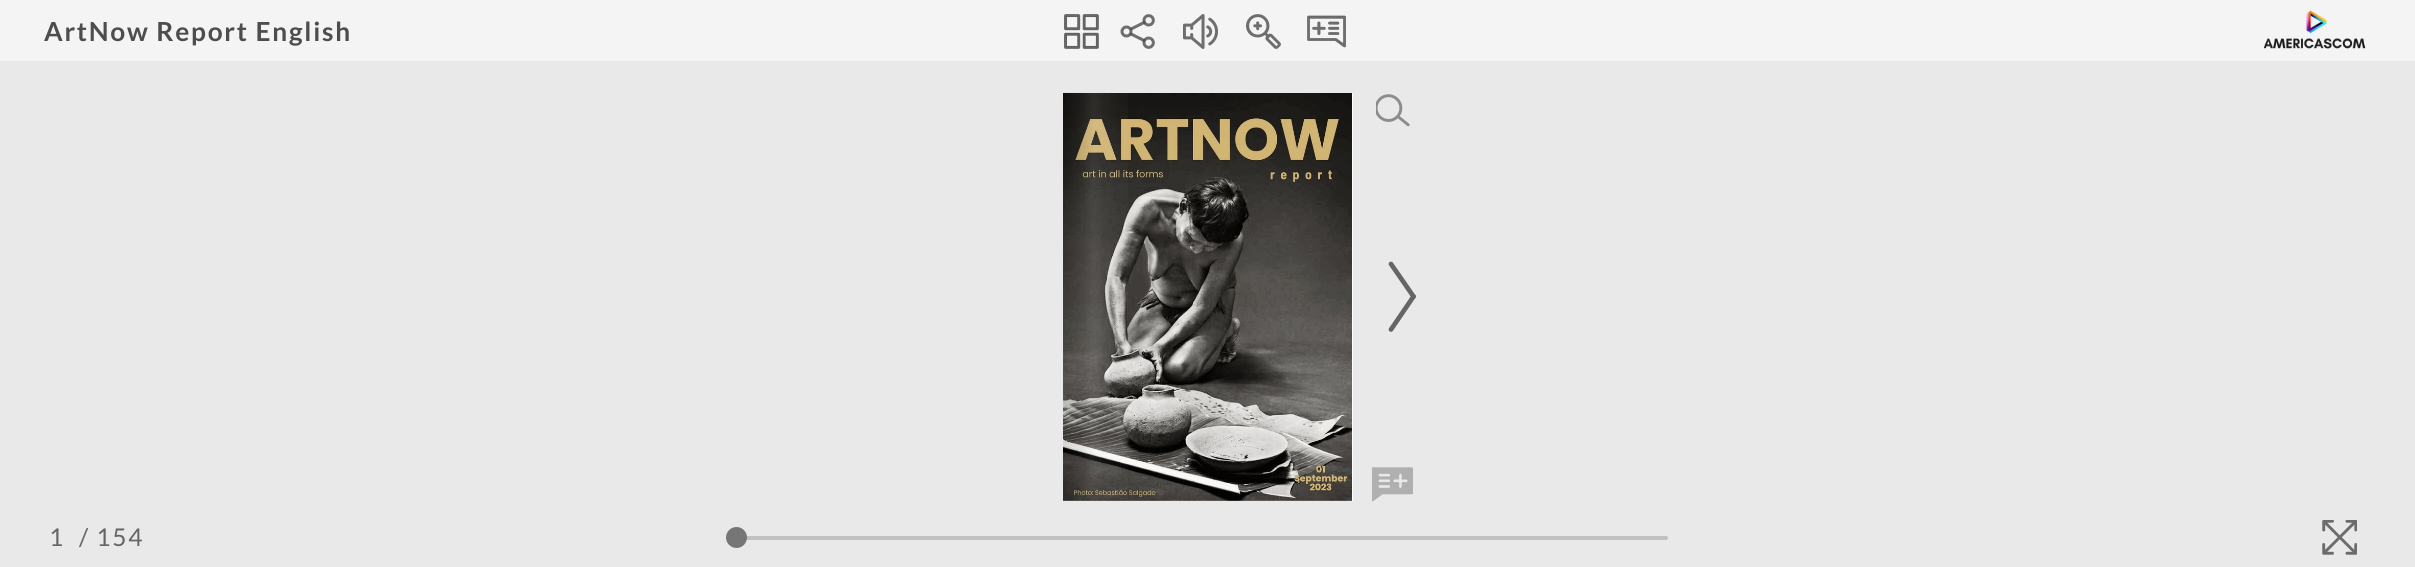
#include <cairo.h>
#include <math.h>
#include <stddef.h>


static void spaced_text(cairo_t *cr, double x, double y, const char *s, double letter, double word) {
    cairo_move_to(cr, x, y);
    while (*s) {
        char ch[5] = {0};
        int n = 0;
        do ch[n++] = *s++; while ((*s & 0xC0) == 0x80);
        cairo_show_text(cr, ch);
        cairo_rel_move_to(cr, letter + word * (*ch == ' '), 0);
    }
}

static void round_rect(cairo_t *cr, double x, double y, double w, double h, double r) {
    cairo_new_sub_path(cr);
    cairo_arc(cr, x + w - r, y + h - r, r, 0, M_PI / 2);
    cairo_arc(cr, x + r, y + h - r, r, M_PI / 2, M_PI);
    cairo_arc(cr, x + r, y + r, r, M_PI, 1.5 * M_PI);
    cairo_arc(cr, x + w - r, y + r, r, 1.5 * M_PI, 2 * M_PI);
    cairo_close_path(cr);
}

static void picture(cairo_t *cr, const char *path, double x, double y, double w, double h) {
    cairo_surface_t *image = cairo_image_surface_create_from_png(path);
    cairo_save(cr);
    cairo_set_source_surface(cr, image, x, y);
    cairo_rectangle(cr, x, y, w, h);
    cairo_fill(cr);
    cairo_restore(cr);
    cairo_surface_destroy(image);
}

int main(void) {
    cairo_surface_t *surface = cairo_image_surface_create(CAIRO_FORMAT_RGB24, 2415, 567);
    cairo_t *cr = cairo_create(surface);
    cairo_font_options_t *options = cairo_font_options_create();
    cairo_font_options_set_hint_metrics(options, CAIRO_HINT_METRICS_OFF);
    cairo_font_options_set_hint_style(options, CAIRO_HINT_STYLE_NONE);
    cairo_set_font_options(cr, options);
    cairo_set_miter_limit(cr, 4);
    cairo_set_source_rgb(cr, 0.914, 0.914, 0.914);
    cairo_paint(cr);
    cairo_set_source_rgb(cr, 0.957, 0.957, 0.957);
    cairo_rectangle(cr, 0, 0, 2415, 61);
    cairo_fill(cr);
    cairo_select_font_face(cr, "Lato", CAIRO_FONT_SLANT_NORMAL, CAIRO_FONT_WEIGHT_BOLD);
    cairo_set_font_size(cr, 26.25);
    cairo_set_source_rgb(cr, 0.302, 0.302, 0.302);
    spaced_text(cr, 44, 41, "ArtNow Report English", 1.75, 0);
    picture(cr, "img1.png", 1064, 14, 35, 35);
    picture(cr, "img2.png", 1120, 14, 35, 35);
    picture(cr, "img3.png", 1183, 14, 35, 35);
    picture(cr, "img4.png", 1246, 14, 35, 35);
    picture(cr, "img5.png", 1307, 15, 39, 33);
    picture(cr, "img6.png", 2263, 10, 103, 39);
    cairo_set_source_rgb(cr, 1, 1, 1);
    cairo_rectangle(cr, 1064, 93, 289, 408);
    cairo_fill(cr);
    picture(cr, "img7.png", 1063, 93, 289, 408);
    picture(cr, "img8.png", 1063, 92, 65, 409);
    picture(cr, "img9.png", 1376, 94, 34, 33);
    picture(cr, "img10.png", 1372, 467, 41, 35);
    cairo_new_path(cr);
    cairo_move_to(cr, 1413.5, 296.5);
    cairo_line_to(cr, 1391, 264);
    cairo_set_source_rgb(cr, 0.396, 0.396, 0.396);
    cairo_set_line_width(cr, 4.7);
    cairo_set_line_cap(cr, CAIRO_LINE_CAP_ROUND);
    cairo_set_line_join(cr, CAIRO_LINE_JOIN_ROUND);
    cairo_stroke(cr);
    cairo_new_path(cr);
    cairo_move_to(cr, 1413.5, 296.5);
    cairo_line_to(cr, 1391, 329.5);
    cairo_stroke(cr);
    cairo_select_font_face(cr, "Lato", CAIRO_FONT_SLANT_NORMAL, CAIRO_FONT_WEIGHT_NORMAL);
    cairo_set_font_size(cr, 24.5);
    spaced_text(cr, 49, 546, "1", 1.75, 0);
    spaced_text(cr, 79, 546, "/ 154", 1.75, 0);
    cairo_set_source_rgb(cr, 0.757, 0.757, 0.757);
    round_rect(cr, 726, 536, 942, 4, 2);
    cairo_fill(cr);
    cairo_set_source_rgb(cr, 0.463, 0.463, 0.463);
    cairo_arc(cr, 736.5, 537.5, 10.5, 0, 2 * M_PI);
    cairo_fill(cr);
    picture(cr, "img11.png", 2322, 520, 35, 35);
    cairo_surface_write_to_png(surface, "page.png");
    cairo_font_options_destroy(options);
    cairo_destroy(cr);
    cairo_surface_destroy(surface);
    return 0;
}
